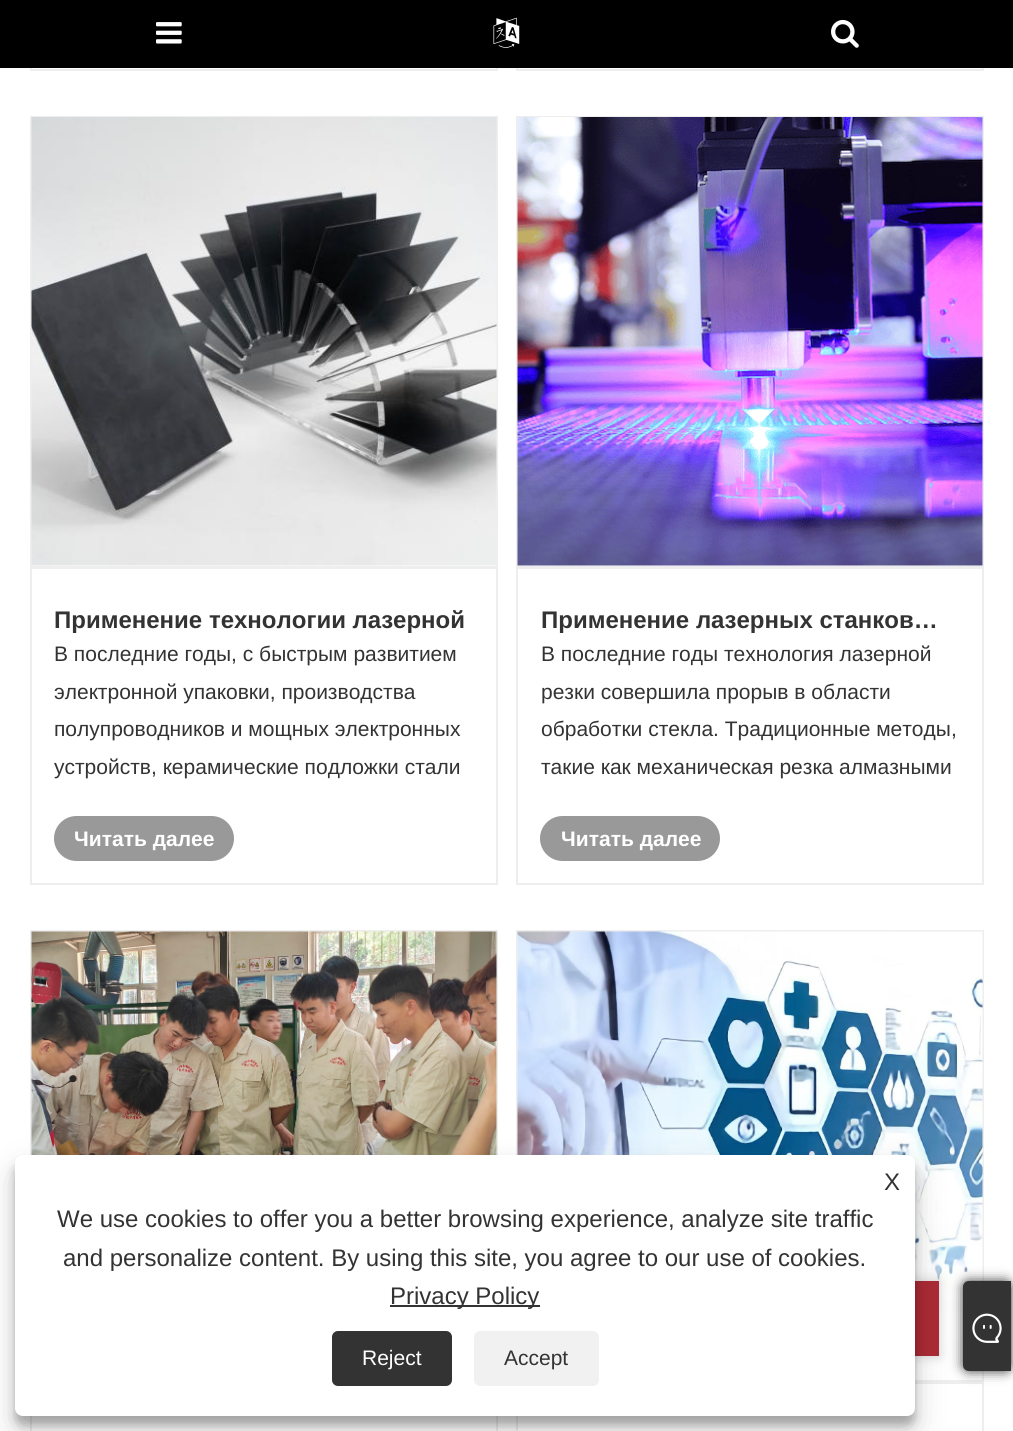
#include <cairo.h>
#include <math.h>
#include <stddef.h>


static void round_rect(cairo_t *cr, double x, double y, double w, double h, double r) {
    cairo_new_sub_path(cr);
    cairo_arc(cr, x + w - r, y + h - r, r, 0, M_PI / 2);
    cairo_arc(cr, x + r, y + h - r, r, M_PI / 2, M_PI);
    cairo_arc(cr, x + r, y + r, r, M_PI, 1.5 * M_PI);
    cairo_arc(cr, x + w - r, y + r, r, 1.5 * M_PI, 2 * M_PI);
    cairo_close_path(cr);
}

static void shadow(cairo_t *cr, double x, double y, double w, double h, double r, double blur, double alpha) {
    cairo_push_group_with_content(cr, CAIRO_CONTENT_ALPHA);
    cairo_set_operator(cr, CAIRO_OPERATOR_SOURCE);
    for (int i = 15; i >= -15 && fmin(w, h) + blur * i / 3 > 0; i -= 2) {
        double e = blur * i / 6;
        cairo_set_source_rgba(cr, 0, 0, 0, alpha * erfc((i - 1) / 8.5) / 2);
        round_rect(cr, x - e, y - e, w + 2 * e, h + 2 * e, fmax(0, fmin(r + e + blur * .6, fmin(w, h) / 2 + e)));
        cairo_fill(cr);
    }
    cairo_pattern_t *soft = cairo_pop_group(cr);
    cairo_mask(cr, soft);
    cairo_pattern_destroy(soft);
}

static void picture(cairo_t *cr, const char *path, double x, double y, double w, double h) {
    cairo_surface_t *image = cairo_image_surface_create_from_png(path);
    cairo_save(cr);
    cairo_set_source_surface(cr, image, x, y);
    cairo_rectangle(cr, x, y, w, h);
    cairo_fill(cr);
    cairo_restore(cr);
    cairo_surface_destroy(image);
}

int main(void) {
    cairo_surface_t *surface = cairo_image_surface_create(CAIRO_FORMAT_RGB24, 1013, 1431);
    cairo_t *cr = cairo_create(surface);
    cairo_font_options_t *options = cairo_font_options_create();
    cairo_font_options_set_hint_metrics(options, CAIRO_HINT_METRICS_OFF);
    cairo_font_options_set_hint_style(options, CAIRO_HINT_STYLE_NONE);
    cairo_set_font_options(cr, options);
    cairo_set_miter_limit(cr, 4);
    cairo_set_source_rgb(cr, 1, 1, 1);
    cairo_paint(cr);
    cairo_rectangle(cr, 31, -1, 466, 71);
    cairo_set_source_rgb(cr, 0.933, 0.933, 0.933);
    cairo_stroke(cr);
    cairo_rectangle(cr, 517, -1, 466, 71);
    cairo_stroke(cr);
    cairo_set_source_rgb(cr, 0, 0, 0);
    cairo_rectangle(cr, 0, 0, 1013, 68);
    cairo_fill(cr);
    picture(cr, "img1.png", 156, 22, 26, 22);
    picture(cr, "img2.png", 493, 17, 27, 31);
    picture(cr, "img3.png", 831, 19, 28, 29);
    cairo_rectangle(cr, 31, 117, 466, 767);
    cairo_set_source_rgb(cr, 0.933, 0.933, 0.933);
    cairo_stroke(cr);
    cairo_rectangle(cr, 32, 566, 465, 3);
    cairo_fill(cr);
    picture(cr, "img4.png", 31, 117, 466, 449);
    cairo_select_font_face(cr, "Liberation Sans", CAIRO_FONT_SLANT_NORMAL, CAIRO_FONT_WEIGHT_BOLD);
    cairo_set_font_size(cr, 24);
    cairo_set_source_rgb(cr, 0.2, 0.2, 0.2);
    cairo_move_to(cr, 54, 628);
    cairo_show_text(cr, "Применение технологии лазерной");
    cairo_select_font_face(cr, "Liberation Sans", CAIRO_FONT_SLANT_NORMAL, CAIRO_FONT_WEIGHT_NORMAL);
    cairo_set_font_size(cr, 21);
    cairo_move_to(cr, 54, 661);
    cairo_show_text(cr, "В последние годы, с быстрым развитием");
    cairo_move_to(cr, 54, 699);
    cairo_show_text(cr, "электронной упаковки, производства");
    cairo_move_to(cr, 54, 736);
    cairo_show_text(cr, "полупроводников и мощных электронных");
    cairo_move_to(cr, 54, 774);
    cairo_show_text(cr, "устройств, керамические подложки стали");
    cairo_set_source_rgb(cr, 0.6, 0.6, 0.6);
    round_rect(cr, 54, 816, 180, 45, 22.5);
    cairo_fill(cr);
    cairo_select_font_face(cr, "Liberation Sans", CAIRO_FONT_SLANT_NORMAL, CAIRO_FONT_WEIGHT_BOLD);
    cairo_set_source_rgb(cr, 1, 1, 1);
    cairo_move_to(cr, 74, 846);
    cairo_show_text(cr, "Читать далее");
    cairo_rectangle(cr, 517, 117, 466, 767);
    cairo_set_source_rgb(cr, 0.933, 0.933, 0.933);
    cairo_stroke(cr);
    cairo_rectangle(cr, 518, 566, 465, 3);
    cairo_fill(cr);
    picture(cr, "img5.png", 517, 117, 466, 449);
    cairo_set_font_size(cr, 24);
    cairo_set_source_rgb(cr, 0.2, 0.2, 0.2);
    cairo_move_to(cr, 541, 628);
    cairo_show_text(cr, "Применение лазерных станков…");
    cairo_select_font_face(cr, "Liberation Sans", CAIRO_FONT_SLANT_NORMAL, CAIRO_FONT_WEIGHT_NORMAL);
    cairo_set_font_size(cr, 21);
    cairo_move_to(cr, 541, 661);
    cairo_show_text(cr, "В последние годы технология лазерной");
    cairo_move_to(cr, 541, 699);
    cairo_show_text(cr, "резки совершила прорыв в области");
    cairo_move_to(cr, 541, 736);
    cairo_show_text(cr, "обработки стекла. Традиционные методы,");
    cairo_move_to(cr, 541, 774);
    cairo_show_text(cr, "такие как механическая резка алмазными");
    cairo_set_source_rgb(cr, 0.6, 0.6, 0.6);
    round_rect(cr, 540, 816, 180, 45, 22.5);
    cairo_fill(cr);
    cairo_select_font_face(cr, "Liberation Sans", CAIRO_FONT_SLANT_NORMAL, CAIRO_FONT_WEIGHT_BOLD);
    cairo_set_source_rgb(cr, 1, 1, 1);
    cairo_move_to(cr, 561, 846);
    cairo_show_text(cr, "Читать далее");
    cairo_rectangle(cr, 31, 931, 466, 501);
    cairo_set_source_rgb(cr, 0.933, 0.933, 0.933);
    cairo_stroke(cr);
    picture(cr, "img6.png", 31, 931, 466, 224);
    cairo_rectangle(cr, 517, 931, 466, 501);
    cairo_stroke(cr);
    cairo_rectangle(cr, 915, 1380, 68, 4);
    cairo_fill(cr);
    picture(cr, "img7.png", 517, 931, 466, 449);
    cairo_set_source_rgb(cr, 0, 0, 0);
    shadow(cr, 864, 1281, 75, 75, 0, 6, 0.2);
    cairo_set_source_rgb(cr, 0.671, 0.169, 0.208);
    cairo_rectangle(cr, 915, 1281, 24, 75);
    cairo_fill(cr);
    cairo_set_source_rgb(cr, 0, 0, 0);
    shadow(cr, 15, 1164, 900, 261, 8, 4.5, 0.23);
    shadow(cr, 15, 1170, 900, 261, 8, 15, 0.19);
    cairo_set_source_rgb(cr, 1, 1, 1);
    round_rect(cr, 15, 1155, 900, 261, 8);
    cairo_fill(cr);
    cairo_select_font_face(cr, "Liberation Sans", CAIRO_FONT_SLANT_NORMAL, CAIRO_FONT_WEIGHT_NORMAL);
    cairo_set_font_size(cr, 24);
    cairo_set_source_rgb(cr, 0.2, 0.2, 0.2);
    cairo_move_to(cr, 884, 1190);
    cairo_show_text(cr, "X");
    cairo_move_to(cr, 57, 1227);
    cairo_show_text(cr, "We use cookies to offer you a better browsing experience, analyze site traffic");
    cairo_move_to(cr, 63, 1266);
    cairo_show_text(cr, "and personalize content. By using this site, you agree to our use of cookies.");
    cairo_rectangle(cr, 390, 1305, 150, 2);
    cairo_fill(cr);
    cairo_move_to(cr, 390, 1304);
    cairo_show_text(cr, "Privacy Policy");
    round_rect(cr, 332, 1331, 120, 55, 6);
    cairo_fill(cr);
    cairo_set_font_size(cr, 21);
    cairo_set_source_rgb(cr, 1, 1, 1);
    cairo_move_to(cr, 362, 1365);
    cairo_show_text(cr, "Reject");
    cairo_set_source_rgb(cr, 0.945, 0.945, 0.945);
    round_rect(cr, 474, 1331, 125, 55, 6);
    cairo_fill(cr);
    cairo_set_source_rgb(cr, 0.2, 0.2, 0.2);
    cairo_move_to(cr, 504, 1365);
    cairo_show_text(cr, "Accept");
    cairo_set_source_rgb(cr, 0.2, 0.2, 0.2);
    shadow(cr, 963, 1281, 48, 90, 6, 6, 1);
    cairo_set_source_rgb(cr, 0.2, 0.2, 0.2);
    cairo_new_path(cr);
    cairo_move_to(cr, 969, 1281);
    cairo_line_to(cr, 1011, 1281);
    cairo_line_to(cr, 1011, 1371);
    cairo_line_to(cr, 969, 1371);
    cairo_curve_to(cr, 965.5, 1371, 963, 1368.5, 963, 1365);
    cairo_line_to(cr, 963, 1287);
    cairo_curve_to(cr, 963, 1283.5, 965.5, 1281, 969, 1281);
    cairo_close_path(cr);
    cairo_fill(cr);
    picture(cr, "img8.png", 972, 1313, 30, 30);
    cairo_surface_write_to_png(surface, "page.png");
    cairo_font_options_destroy(options);
    cairo_destroy(cr);
    cairo_surface_destroy(surface);
    return 0;
}
